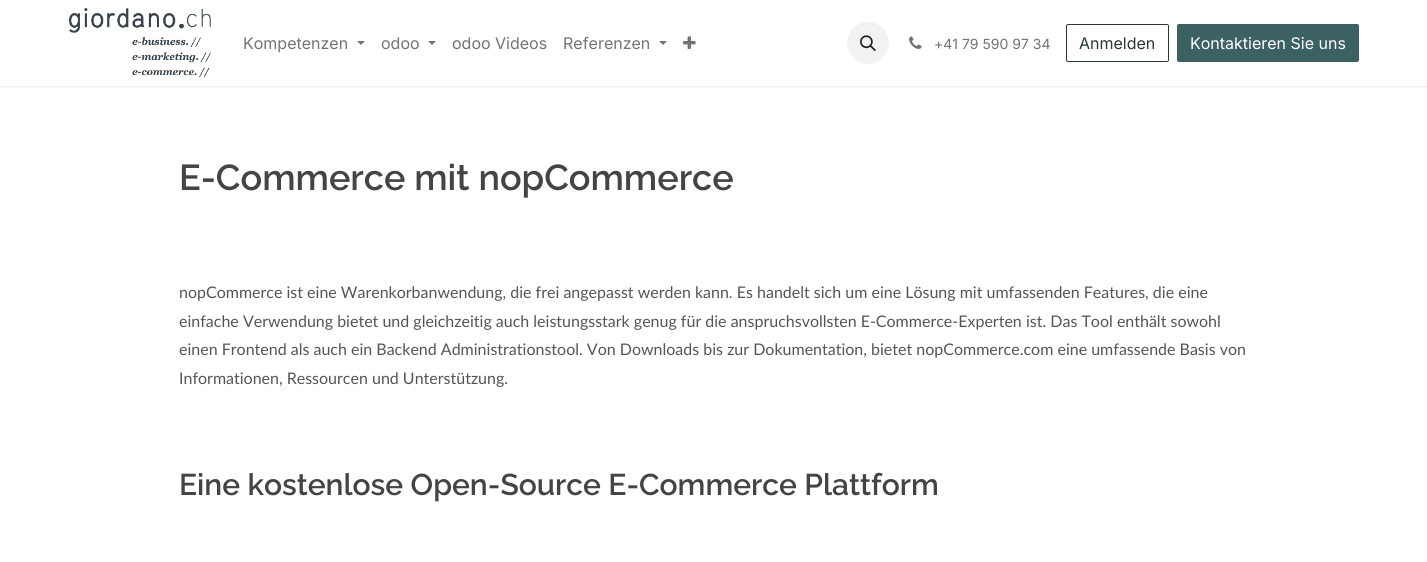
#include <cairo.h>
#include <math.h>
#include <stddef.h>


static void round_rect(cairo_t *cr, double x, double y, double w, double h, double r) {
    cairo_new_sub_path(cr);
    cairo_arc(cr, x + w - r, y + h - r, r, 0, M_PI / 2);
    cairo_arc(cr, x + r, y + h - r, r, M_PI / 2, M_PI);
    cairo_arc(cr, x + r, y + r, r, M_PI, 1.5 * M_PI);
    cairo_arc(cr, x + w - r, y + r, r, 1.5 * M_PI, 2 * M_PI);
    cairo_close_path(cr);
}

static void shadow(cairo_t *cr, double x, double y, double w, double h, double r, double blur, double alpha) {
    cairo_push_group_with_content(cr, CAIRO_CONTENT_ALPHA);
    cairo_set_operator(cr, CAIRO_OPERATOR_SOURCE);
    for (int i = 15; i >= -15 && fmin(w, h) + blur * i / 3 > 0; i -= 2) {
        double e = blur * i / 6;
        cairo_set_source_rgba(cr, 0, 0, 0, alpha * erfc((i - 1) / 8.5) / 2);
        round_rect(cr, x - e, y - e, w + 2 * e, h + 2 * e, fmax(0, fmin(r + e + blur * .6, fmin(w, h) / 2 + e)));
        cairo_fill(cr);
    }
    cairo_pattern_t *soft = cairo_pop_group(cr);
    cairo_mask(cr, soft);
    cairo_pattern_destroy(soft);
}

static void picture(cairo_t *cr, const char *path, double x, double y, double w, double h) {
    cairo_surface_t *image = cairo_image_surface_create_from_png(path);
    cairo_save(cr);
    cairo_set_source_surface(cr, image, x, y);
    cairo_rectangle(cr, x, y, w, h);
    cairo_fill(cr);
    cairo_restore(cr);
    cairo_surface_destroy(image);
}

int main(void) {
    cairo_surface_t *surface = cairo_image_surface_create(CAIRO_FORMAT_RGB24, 1427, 562);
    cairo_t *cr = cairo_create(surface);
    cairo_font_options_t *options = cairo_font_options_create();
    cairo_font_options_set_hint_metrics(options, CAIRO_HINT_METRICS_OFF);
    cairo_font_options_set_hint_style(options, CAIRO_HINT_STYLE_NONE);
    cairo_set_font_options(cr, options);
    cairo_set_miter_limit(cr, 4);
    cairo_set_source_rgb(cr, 1, 1, 1);
    cairo_paint(cr);
    cairo_save(cr);
    cairo_rectangle(cr, 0, 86, 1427, 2);
    cairo_clip(cr);
    cairo_set_source_rgb(cr, 0, 0, 0);
    shadow(cr, 0, 1, 1427, 86, 0, 1.5, 0.1);
    cairo_restore(cr);
    picture(cr, "img1.png", 69, 8, 142, 70);
    cairo_select_font_face(cr, "Inter", CAIRO_FONT_SLANT_NORMAL, CAIRO_FONT_WEIGHT_NORMAL);
    cairo_set_font_size(cr, 16);
    cairo_set_source_rgb(cr, 0.451, 0.451, 0.451);
    cairo_move_to(cr, 243, 49);
    cairo_show_text(cr, "Kompetenzen");
    cairo_new_path(cr);
    cairo_move_to(cr, 357, 41);
    cairo_line_to(cr, 365, 41);
    cairo_line_to(cr, 361, 45);
    cairo_close_path(cr);
    cairo_fill(cr);
    cairo_move_to(cr, 381, 49);
    cairo_show_text(cr, "odoo");
    cairo_new_path(cr);
    cairo_move_to(cr, 428, 41);
    cairo_line_to(cr, 436, 41);
    cairo_line_to(cr, 432, 45);
    cairo_close_path(cr);
    cairo_fill(cr);
    cairo_move_to(cr, 452, 49);
    cairo_show_text(cr, "odoo Videos");
    cairo_move_to(cr, 563, 49);
    cairo_show_text(cr, "Referenzen");
    cairo_new_path(cr);
    cairo_move_to(cr, 659, 41);
    cairo_line_to(cr, 667, 41);
    cairo_line_to(cr, 663, 45);
    cairo_close_path(cr);
    cairo_fill(cr);
    picture(cr, "img2.png", 683, 36, 13, 13);
    cairo_set_source_rgb(cr, 0.949, 0.949, 0.949);
    cairo_arc(cr, 868, 43, 21, 0, 2 * M_PI);
    cairo_fill(cr);
    picture(cr, "img3.png", 860, 35, 16, 17);
    picture(cr, "img4.png", 909, 36, 13, 13);
    cairo_set_font_size(cr, 14);
    cairo_set_source_rgb(cr, 0.451, 0.451, 0.451);
    cairo_move_to(cr, 934, 49);
    cairo_show_text(cr, "+41 79 590 97 34");
    round_rect(cr, 1066.5, 24.5, 102, 37, 1.5);
    cairo_set_source_rgb(cr, 0.169, 0.216, 0.216);
    cairo_set_line_width(cr, 1);
    cairo_stroke(cr);
    cairo_set_font_size(cr, 16);
    cairo_move_to(cr, 1079, 49);
    cairo_show_text(cr, "Anmelden");
    cairo_set_source_rgb(cr, 0.235, 0.38, 0.384);
    round_rect(cr, 1177.5, 24.5, 181, 37, 1.5);
    cairo_fill_preserve(cr);
    cairo_stroke(cr);
    cairo_set_source_rgb(cr, 1, 1, 1);
    cairo_move_to(cr, 1190, 49);
    cairo_show_text(cr, "Kontaktieren Sie uns");
    cairo_select_font_face(cr, "Raleway SemiBold", CAIRO_FONT_SLANT_NORMAL, CAIRO_FONT_WEIGHT_NORMAL);
    cairo_set_font_size(cr, 36);
    cairo_set_source_rgb(cr, 0.267, 0.267, 0.267);
    cairo_move_to(cr, 179, 190);
    cairo_show_text(cr, "E-Commerce mit nopCommerce");
    cairo_select_font_face(cr, "Lato", CAIRO_FONT_SLANT_NORMAL, CAIRO_FONT_WEIGHT_NORMAL);
    cairo_set_font_size(cr, 16);
    cairo_set_source_rgb(cr, 0.333, 0.333, 0.333);
    cairo_move_to(cr, 179, 298);
    cairo_show_text(cr, "nopCommerce ist eine Warenkorbanwendung, die frei angepasst werden kann. Es handelt sich um eine Lösung mit umfassenden Features, die eine");
    cairo_move_to(cr, 179, 327);
    cairo_show_text(cr, "einfache Verwendung bietet und gleichzeitig auch leistungsstark genug für die anspruchsvollsten E-Commerce-Experten ist. Das Tool enthält sowohl");
    cairo_move_to(cr, 179, 355);
    cairo_show_text(cr, "einen Frontend als auch ein Backend Administrationstool. Von Downloads bis zur Dokumentation, bietet nopCommerce.com eine umfassende Basis von");
    cairo_move_to(cr, 179, 384);
    cairo_show_text(cr, "Informationen, Ressourcen und Unterstützung.");
    cairo_select_font_face(cr, "Raleway SemiBold", CAIRO_FONT_SLANT_NORMAL, CAIRO_FONT_WEIGHT_NORMAL);
    cairo_set_font_size(cr, 30);
    cairo_set_source_rgb(cr, 0.267, 0.267, 0.267);
    cairo_move_to(cr, 179, 495);
    cairo_show_text(cr, "Eine kostenlose Open-Source E-Commerce Plattform");
    cairo_surface_write_to_png(surface, "page.png");
    cairo_font_options_destroy(options);
    cairo_destroy(cr);
    cairo_surface_destroy(surface);
    return 0;
}
